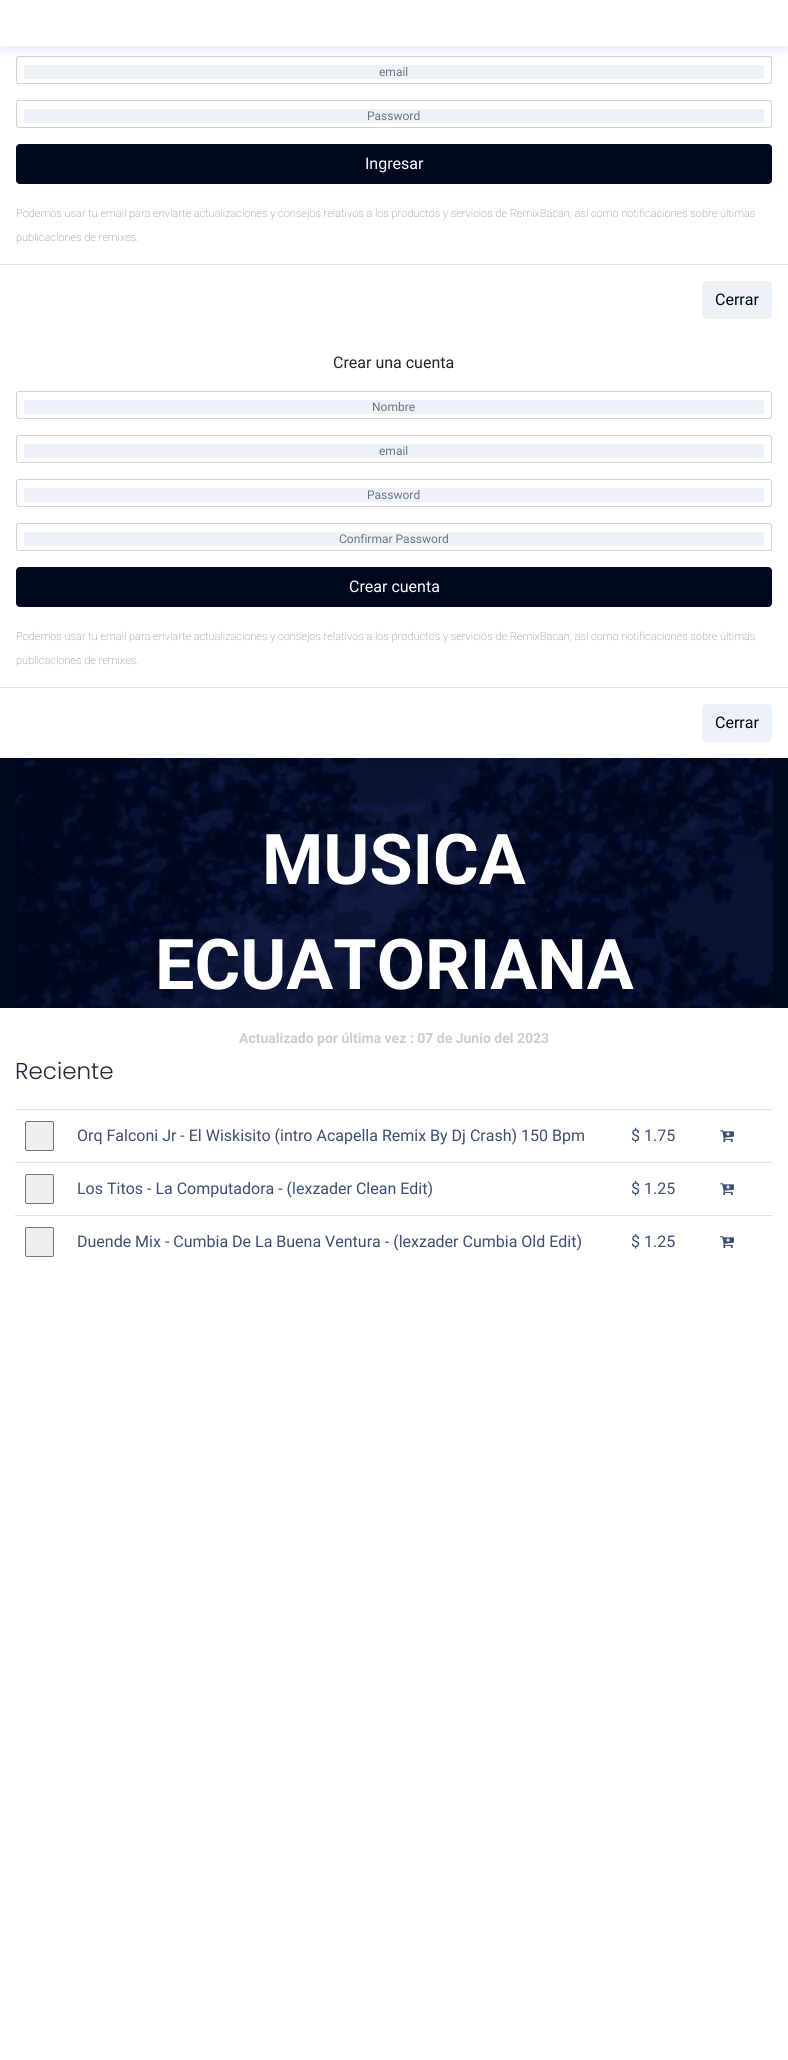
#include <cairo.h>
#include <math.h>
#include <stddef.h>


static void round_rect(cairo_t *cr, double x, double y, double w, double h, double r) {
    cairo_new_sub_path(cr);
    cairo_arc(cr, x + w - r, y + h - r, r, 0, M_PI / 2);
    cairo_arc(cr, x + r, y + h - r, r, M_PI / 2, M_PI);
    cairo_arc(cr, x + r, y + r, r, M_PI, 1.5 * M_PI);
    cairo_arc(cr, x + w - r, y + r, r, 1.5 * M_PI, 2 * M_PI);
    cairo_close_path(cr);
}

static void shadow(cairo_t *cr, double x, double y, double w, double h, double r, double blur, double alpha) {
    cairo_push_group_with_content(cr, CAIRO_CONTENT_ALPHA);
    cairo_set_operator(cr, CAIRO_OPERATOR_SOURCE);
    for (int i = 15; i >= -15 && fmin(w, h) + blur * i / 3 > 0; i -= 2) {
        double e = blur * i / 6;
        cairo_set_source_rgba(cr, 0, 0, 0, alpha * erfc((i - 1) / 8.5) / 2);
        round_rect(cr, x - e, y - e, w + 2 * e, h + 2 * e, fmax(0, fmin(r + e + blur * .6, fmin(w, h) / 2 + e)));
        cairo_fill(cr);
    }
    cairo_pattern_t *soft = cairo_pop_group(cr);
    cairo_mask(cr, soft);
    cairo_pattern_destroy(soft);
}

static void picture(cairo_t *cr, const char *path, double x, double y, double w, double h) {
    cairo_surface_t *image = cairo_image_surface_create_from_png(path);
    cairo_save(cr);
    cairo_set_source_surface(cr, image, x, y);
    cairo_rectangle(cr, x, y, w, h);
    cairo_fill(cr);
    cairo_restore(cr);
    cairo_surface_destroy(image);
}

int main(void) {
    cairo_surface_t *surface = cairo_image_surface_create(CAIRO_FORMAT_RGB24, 788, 2060);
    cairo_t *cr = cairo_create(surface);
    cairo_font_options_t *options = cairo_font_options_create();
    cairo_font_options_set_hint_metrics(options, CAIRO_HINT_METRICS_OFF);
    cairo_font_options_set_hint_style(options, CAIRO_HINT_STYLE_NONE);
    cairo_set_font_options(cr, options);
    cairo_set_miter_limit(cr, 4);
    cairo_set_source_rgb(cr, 1, 1, 1);
    cairo_paint(cr);
    round_rect(cr, 16.5, 56.5, 755, 27, 2.5);
    cairo_set_source_rgb(cr, 0.808, 0.831, 0.855);
    cairo_set_line_width(cr, 1);
    cairo_stroke(cr);
    cairo_set_source_rgb(cr, 0.122, 0.42, 1);
    shadow(cr, 0, 6, 788, 46, 0, 3, 0.1);
    cairo_set_source_rgb(cr, 1, 1, 1);
    cairo_rectangle(cr, 0, 2, 788, 44);
    cairo_fill(cr);
    cairo_set_source_rgb(cr, 0.929, 0.949, 0.976);
    cairo_rectangle(cr, 24, 65, 740, 14);
    cairo_fill(cr);
    cairo_select_font_face(cr, "Roboto", CAIRO_FONT_SLANT_NORMAL, CAIRO_FONT_WEIGHT_NORMAL);
    cairo_set_font_size(cr, 12);
    cairo_set_source_rgb(cr, 0.424, 0.459, 0.49);
    cairo_move_to(cr, 379, 76);
    cairo_show_text(cr, "email");
    round_rect(cr, 16.5, 100.5, 755, 27, 2.5);
    cairo_set_source_rgb(cr, 0.808, 0.831, 0.855);
    cairo_stroke(cr);
    cairo_set_source_rgb(cr, 0.929, 0.949, 0.976);
    cairo_rectangle(cr, 24, 109, 740, 14);
    cairo_fill(cr);
    cairo_set_source_rgb(cr, 0.424, 0.459, 0.49);
    cairo_move_to(cr, 367, 120);
    cairo_show_text(cr, "Password");
    cairo_set_source_rgb(cr, 0, 0.035, 0.125);
    round_rect(cr, 16, 144, 756, 40, 4);
    cairo_fill(cr);
    cairo_set_font_size(cr, 16);
    cairo_set_source_rgb(cr, 1, 1, 1);
    cairo_move_to(cr, 365, 169);
    cairo_show_text(cr, "Ingresar");
    cairo_select_font_face(cr, "Roboto ExtraLight", CAIRO_FONT_SLANT_NORMAL, CAIRO_FONT_WEIGHT_NORMAL);
    cairo_set_font_size(cr, 11);
    cairo_set_source_rgb(cr, 0.6, 0.6, 0.6);
    cairo_move_to(cr, 16, 217);
    cairo_show_text(cr, "Podemos usar tu email para enviarte actualizaciones y consejos relativos a los productos y servicios de RemixBacan, así como notificaciones sobre últimas");
    cairo_move_to(cr, 16, 241);
    cairo_show_text(cr, "publicaciones de remixes.");
    cairo_set_source_rgb(cr, 0.871, 0.886, 0.902);
    cairo_rectangle(cr, 0, 264, 788, 1);
    cairo_fill(cr);
    cairo_set_source_rgb(cr, 0.929, 0.949, 0.976);
    round_rect(cr, 702, 281, 70, 38, 4);
    cairo_fill(cr);
    cairo_select_font_face(cr, "Roboto", CAIRO_FONT_SLANT_NORMAL, CAIRO_FONT_WEIGHT_NORMAL);
    cairo_set_font_size(cr, 16);
    cairo_set_source_rgb(cr, 0, 0.035, 0.125);
    cairo_move_to(cr, 715, 305);
    cairo_show_text(cr, "Cerrar");
    cairo_set_source_rgb(cr, 0.129, 0.145, 0.161);
    cairo_move_to(cr, 333, 368);
    cairo_show_text(cr, "Crear una cuenta");
    round_rect(cr, 16.5, 391.5, 755, 27, 2.5);
    cairo_set_source_rgb(cr, 0.808, 0.831, 0.855);
    cairo_stroke(cr);
    cairo_set_source_rgb(cr, 0.929, 0.949, 0.976);
    cairo_rectangle(cr, 24, 400, 740, 14);
    cairo_fill(cr);
    cairo_set_font_size(cr, 12);
    cairo_set_source_rgb(cr, 0.424, 0.459, 0.49);
    cairo_move_to(cr, 372, 411);
    cairo_show_text(cr, "Nombre");
    round_rect(cr, 16.5, 435.5, 755, 27, 2.5);
    cairo_set_source_rgb(cr, 0.808, 0.831, 0.855);
    cairo_stroke(cr);
    cairo_set_source_rgb(cr, 0.929, 0.949, 0.976);
    cairo_rectangle(cr, 24, 444, 740, 14);
    cairo_fill(cr);
    cairo_set_source_rgb(cr, 0.424, 0.459, 0.49);
    cairo_move_to(cr, 379, 455);
    cairo_show_text(cr, "email");
    round_rect(cr, 16.5, 479.5, 755, 27, 2.5);
    cairo_set_source_rgb(cr, 0.808, 0.831, 0.855);
    cairo_stroke(cr);
    cairo_set_source_rgb(cr, 0.929, 0.949, 0.976);
    cairo_rectangle(cr, 24, 488, 740, 14);
    cairo_fill(cr);
    cairo_set_source_rgb(cr, 0.424, 0.459, 0.49);
    cairo_move_to(cr, 367, 499);
    cairo_show_text(cr, "Password");
    round_rect(cr, 16.5, 523.5, 755, 27, 2.5);
    cairo_set_source_rgb(cr, 0.808, 0.831, 0.855);
    cairo_stroke(cr);
    cairo_set_source_rgb(cr, 0.929, 0.949, 0.976);
    cairo_rectangle(cr, 24, 532, 740, 14);
    cairo_fill(cr);
    cairo_set_source_rgb(cr, 0.424, 0.459, 0.49);
    cairo_move_to(cr, 339, 543);
    cairo_show_text(cr, "Confirmar Password");
    cairo_set_source_rgb(cr, 0, 0.035, 0.125);
    round_rect(cr, 16, 567, 756, 40, 4);
    cairo_fill(cr);
    cairo_set_font_size(cr, 16);
    cairo_set_source_rgb(cr, 1, 1, 1);
    cairo_move_to(cr, 349, 592);
    cairo_show_text(cr, "Crear cuenta");
    cairo_select_font_face(cr, "Roboto ExtraLight", CAIRO_FONT_SLANT_NORMAL, CAIRO_FONT_WEIGHT_NORMAL);
    cairo_set_font_size(cr, 11);
    cairo_set_source_rgb(cr, 0.6, 0.6, 0.6);
    cairo_move_to(cr, 16, 640);
    cairo_show_text(cr, "Podemos usar tu email para enviarte actualizaciones y consejos relativos a los productos y servicios de RemixBacan, así como notificaciones sobre últimas");
    cairo_move_to(cr, 16, 664);
    cairo_show_text(cr, "publicaciones de remixes.");
    cairo_set_source_rgb(cr, 0.871, 0.886, 0.902);
    cairo_rectangle(cr, 0, 687, 788, 1);
    cairo_fill(cr);
    cairo_set_source_rgb(cr, 0.929, 0.949, 0.976);
    round_rect(cr, 702, 704, 70, 38, 4);
    cairo_fill(cr);
    cairo_select_font_face(cr, "Roboto", CAIRO_FONT_SLANT_NORMAL, CAIRO_FONT_WEIGHT_NORMAL);
    cairo_set_font_size(cr, 16);
    cairo_set_source_rgb(cr, 0, 0.035, 0.125);
    cairo_move_to(cr, 715, 728);
    cairo_show_text(cr, "Cerrar");
    cairo_rectangle(cr, 0, 758, 788, 250);
    cairo_fill(cr);
    picture(cr, "img1.png", 15, 758, 758, 250);
    cairo_select_font_face(cr, "Roboto", CAIRO_FONT_SLANT_NORMAL, CAIRO_FONT_WEIGHT_BOLD);
    cairo_set_font_size(cr, 70);
    cairo_set_source_rgb(cr, 1, 1, 1);
    cairo_move_to(cr, 262, 884);
    cairo_show_text(cr, "MUSICA");
    cairo_move_to(cr, 155, 989);
    cairo_show_text(cr, "ECUATORIANA");
    cairo_set_font_size(cr, 14);
    cairo_set_source_rgb(cr, 0.8, 0.8, 0.8);
    cairo_move_to(cr, 239, 1043);
    cairo_show_text(cr, "Actualizado por última vez : 07 de Junio del 2023");
    cairo_select_font_face(cr, "Poppins Light", CAIRO_FONT_SLANT_NORMAL, CAIRO_FONT_WEIGHT_NORMAL);
    cairo_set_font_size(cr, 23);
    cairo_set_source_rgb(cr, 0.129, 0.157, 0.216);
    cairo_move_to(cr, 15, 1079);
    cairo_show_text(cr, "Reciente");
    cairo_set_source_rgb(cr, 0.871, 0.886, 0.902);
    cairo_rectangle(cr, 15, 1109, 758, 1);
    cairo_fill(cr);
    picture(cr, "img2.png", 720, 1130, 14, 13);
    cairo_set_source_rgb(cr, 0.937, 0.937, 0.937);
    round_rect(cr, 25.5, 1121.5, 28, 29, 1.5);
    cairo_fill_preserve(cr);
    cairo_set_source_rgb(cr, 0.463, 0.463, 0.463);
    cairo_stroke(cr);
    cairo_select_font_face(cr, "Roboto", CAIRO_FONT_SLANT_NORMAL, CAIRO_FONT_WEIGHT_NORMAL);
    cairo_set_font_size(cr, 16);
    cairo_set_source_rgb(cr, 0.235, 0.306, 0.443);
    cairo_move_to(cr, 77, 1141);
    cairo_show_text(cr, "Orq Falconi Jr - El Wiskisito (intro Acapella Remix By Dj Crash) 150 Bpm");
    cairo_move_to(cr, 631, 1141);
    cairo_show_text(cr, "$ 1.75");
    cairo_set_source_rgb(cr, 0.871, 0.886, 0.902);
    cairo_rectangle(cr, 15, 1162, 758, 1);
    cairo_fill(cr);
    picture(cr, "img2.png", 720, 1183, 14, 13);
    cairo_set_source_rgb(cr, 0.937, 0.937, 0.937);
    round_rect(cr, 25.5, 1174.5, 28, 29, 1.5);
    cairo_fill_preserve(cr);
    cairo_set_source_rgb(cr, 0.463, 0.463, 0.463);
    cairo_stroke(cr);
    cairo_set_source_rgb(cr, 0.235, 0.306, 0.443);
    cairo_move_to(cr, 77, 1194);
    cairo_show_text(cr, "Los Titos - La Computadora - (lexzader Clean Edit)");
    cairo_move_to(cr, 631, 1194);
    cairo_show_text(cr, "$ 1.25");
    cairo_set_source_rgb(cr, 0.871, 0.886, 0.902);
    cairo_rectangle(cr, 15, 1215, 758, 1);
    cairo_fill(cr);
    picture(cr, "img2.png", 720, 1236, 14, 13);
    cairo_set_source_rgb(cr, 0.937, 0.937, 0.937);
    round_rect(cr, 25.5, 1227.5, 28, 29, 1.5);
    cairo_fill_preserve(cr);
    cairo_set_source_rgb(cr, 0.463, 0.463, 0.463);
    cairo_stroke(cr);
    cairo_set_source_rgb(cr, 0.235, 0.306, 0.443);
    cairo_move_to(cr, 77, 1247);
    cairo_show_text(cr, "Duende Mix - Cumbia De La Buena Ventura - (lexzader Cumbia Old Edit)");
    cairo_move_to(cr, 631, 1247);
    cairo_show_text(cr, "$ 1.25");
    cairo_surface_write_to_png(surface, "page.png");
    cairo_font_options_destroy(options);
    cairo_destroy(cr);
    cairo_surface_destroy(surface);
    return 0;
}
